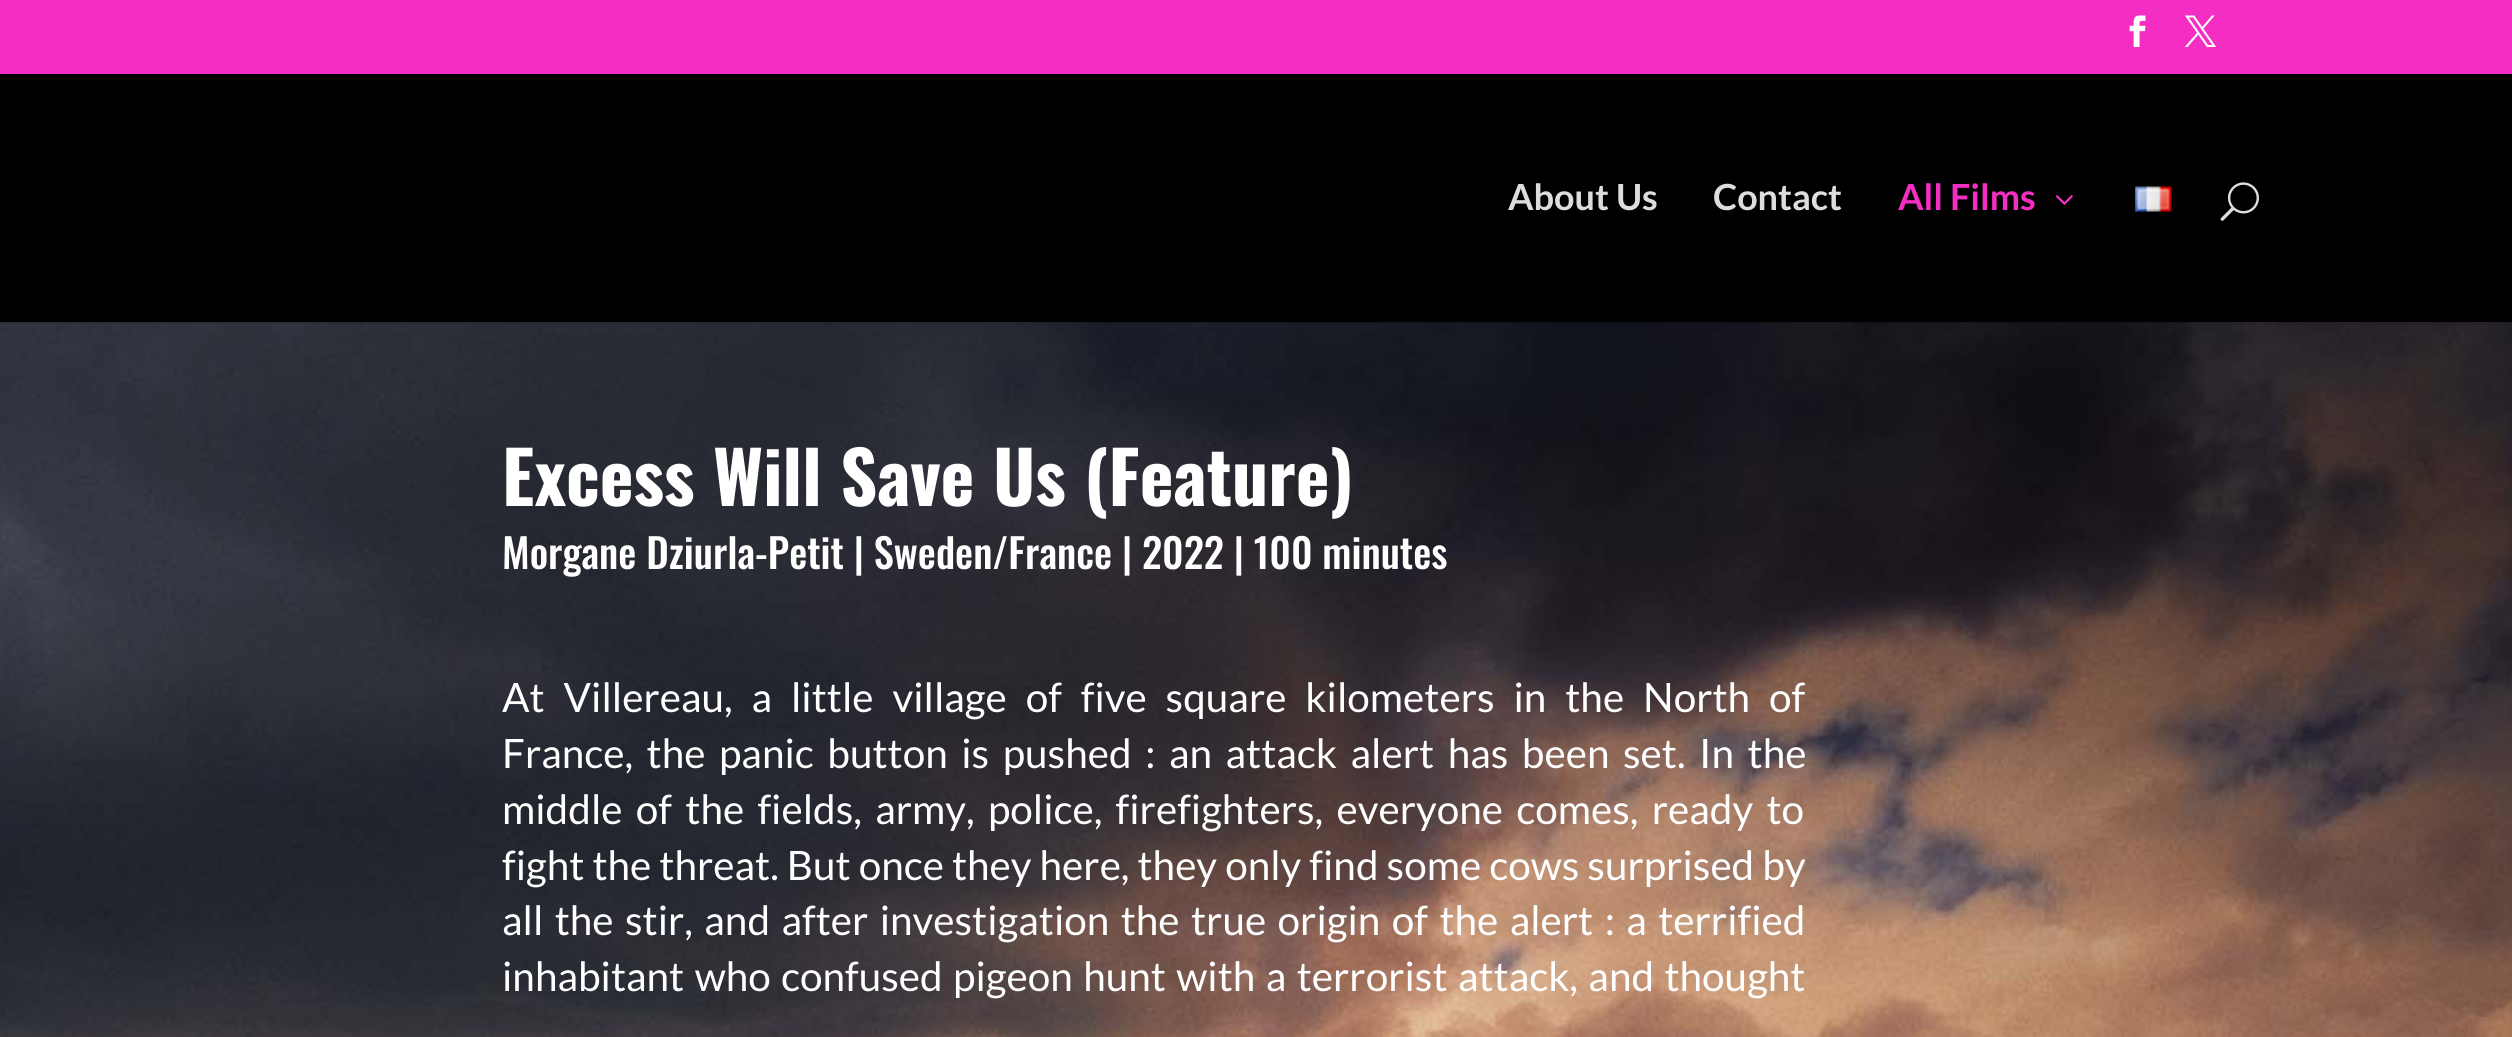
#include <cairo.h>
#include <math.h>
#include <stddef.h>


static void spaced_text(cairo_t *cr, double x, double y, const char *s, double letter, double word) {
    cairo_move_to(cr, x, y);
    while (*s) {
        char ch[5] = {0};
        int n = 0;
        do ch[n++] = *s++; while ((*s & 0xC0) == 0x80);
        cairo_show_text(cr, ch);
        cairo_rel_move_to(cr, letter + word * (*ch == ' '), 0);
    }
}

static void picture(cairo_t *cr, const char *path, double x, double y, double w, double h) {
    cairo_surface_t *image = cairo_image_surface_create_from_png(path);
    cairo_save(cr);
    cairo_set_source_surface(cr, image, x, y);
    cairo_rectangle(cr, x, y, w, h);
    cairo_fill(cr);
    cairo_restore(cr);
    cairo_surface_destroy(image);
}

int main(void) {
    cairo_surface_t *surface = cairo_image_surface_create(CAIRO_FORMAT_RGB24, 2512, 1037);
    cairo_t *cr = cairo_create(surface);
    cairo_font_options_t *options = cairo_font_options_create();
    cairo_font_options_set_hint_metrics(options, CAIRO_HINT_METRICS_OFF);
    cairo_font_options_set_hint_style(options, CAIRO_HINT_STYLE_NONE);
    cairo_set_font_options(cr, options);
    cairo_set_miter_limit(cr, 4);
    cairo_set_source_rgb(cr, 1, 1, 1);
    cairo_paint(cr);
    cairo_set_source_rgb(cr, 0.957, 0.18, 0.765);
    cairo_rectangle(cr, 0, 0, 2512, 74);
    cairo_fill(cr);
    picture(cr, "img1.png", 2129, 15, 17, 32);
    picture(cr, "img2.png", 2185, 15, 32, 32);
    picture(cr, "img6.png", 0, 322, 2512, 715);
    cairo_set_source_rgba(cr, 0, 0, 0, 0.1);
    cairo_rectangle(cr, 0, 322, 2512, 2);
    cairo_fill(cr);
    cairo_set_source_rgb(cr, 0, 0, 0);
    cairo_rectangle(cr, 0, 74, 2512, 248);
    cairo_fill(cr);
    cairo_select_font_face(cr, "Lato", CAIRO_FONT_SLANT_NORMAL, CAIRO_FONT_WEIGHT_BOLD);
    cairo_set_font_size(cr, 36);
    cairo_set_source_rgb(cr, 0.867, 0.867, 0.867);
    cairo_move_to(cr, 1508, 210);
    cairo_show_text(cr, "About Us");
    cairo_move_to(cr, 1713, 210);
    cairo_show_text(cr, "Contact");
    cairo_set_source_rgb(cr, 0.957, 0.18, 0.765);
    cairo_move_to(cr, 1898, 210);
    cairo_show_text(cr, "All Films");
    picture(cr, "img3.png", 2056, 195, 17, 10);
    picture(cr, "img4.png", 2135, 186, 37, 26);
    picture(cr, "img5.png", 2220, 182, 39, 39);
    cairo_select_font_face(cr, "Oswald", CAIRO_FONT_SLANT_NORMAL, CAIRO_FONT_WEIGHT_BOLD);
    cairo_set_font_size(cr, 72);
    cairo_set_source_rgb(cr, 1, 1, 1);
    cairo_move_to(cr, 502, 506);
    cairo_show_text(cr, "Excess Will Save Us (Feature)");
    cairo_select_font_face(cr, "Oswald Medium", CAIRO_FONT_SLANT_NORMAL, CAIRO_FONT_WEIGHT_NORMAL);
    cairo_set_font_size(cr, 40.5);
    cairo_move_to(cr, 502, 569);
    cairo_show_text(cr, "Morgane Dziurla-Petit | Sweden/France | 2022 | 100 minutes");
    cairo_select_font_face(cr, "Lato", CAIRO_FONT_SLANT_NORMAL, CAIRO_FONT_WEIGHT_NORMAL);
    spaced_text(cr, 502, 712, "At Villereau, a little village of five square kilometers in the North of", 0, 11.1);
    spaced_text(cr, 502, 768, "France, the panic button is pushed : an attack alert has been set. In the", 0, 5.75);
    spaced_text(cr, 502, 824, "middle of the fields, army, police, firefighters, everyone comes, ready to", 0, 5.5);
    spaced_text(cr, 502, 880, "fight the threat. But once they here, they only find some cows surprised by", 0, 0.25);
    spaced_text(cr, 502, 935, "all the stir, and after investigation the true origin of the alert : a terrified", 0, 3.6);
    spaced_text(cr, 502, 991, "inhabitant who confused pigeon hunt with a terrorist attack, and thought", 0, 2.6);
    cairo_surface_write_to_png(surface, "page.png");
    cairo_font_options_destroy(options);
    cairo_destroy(cr);
    cairo_surface_destroy(surface);
    return 0;
}
